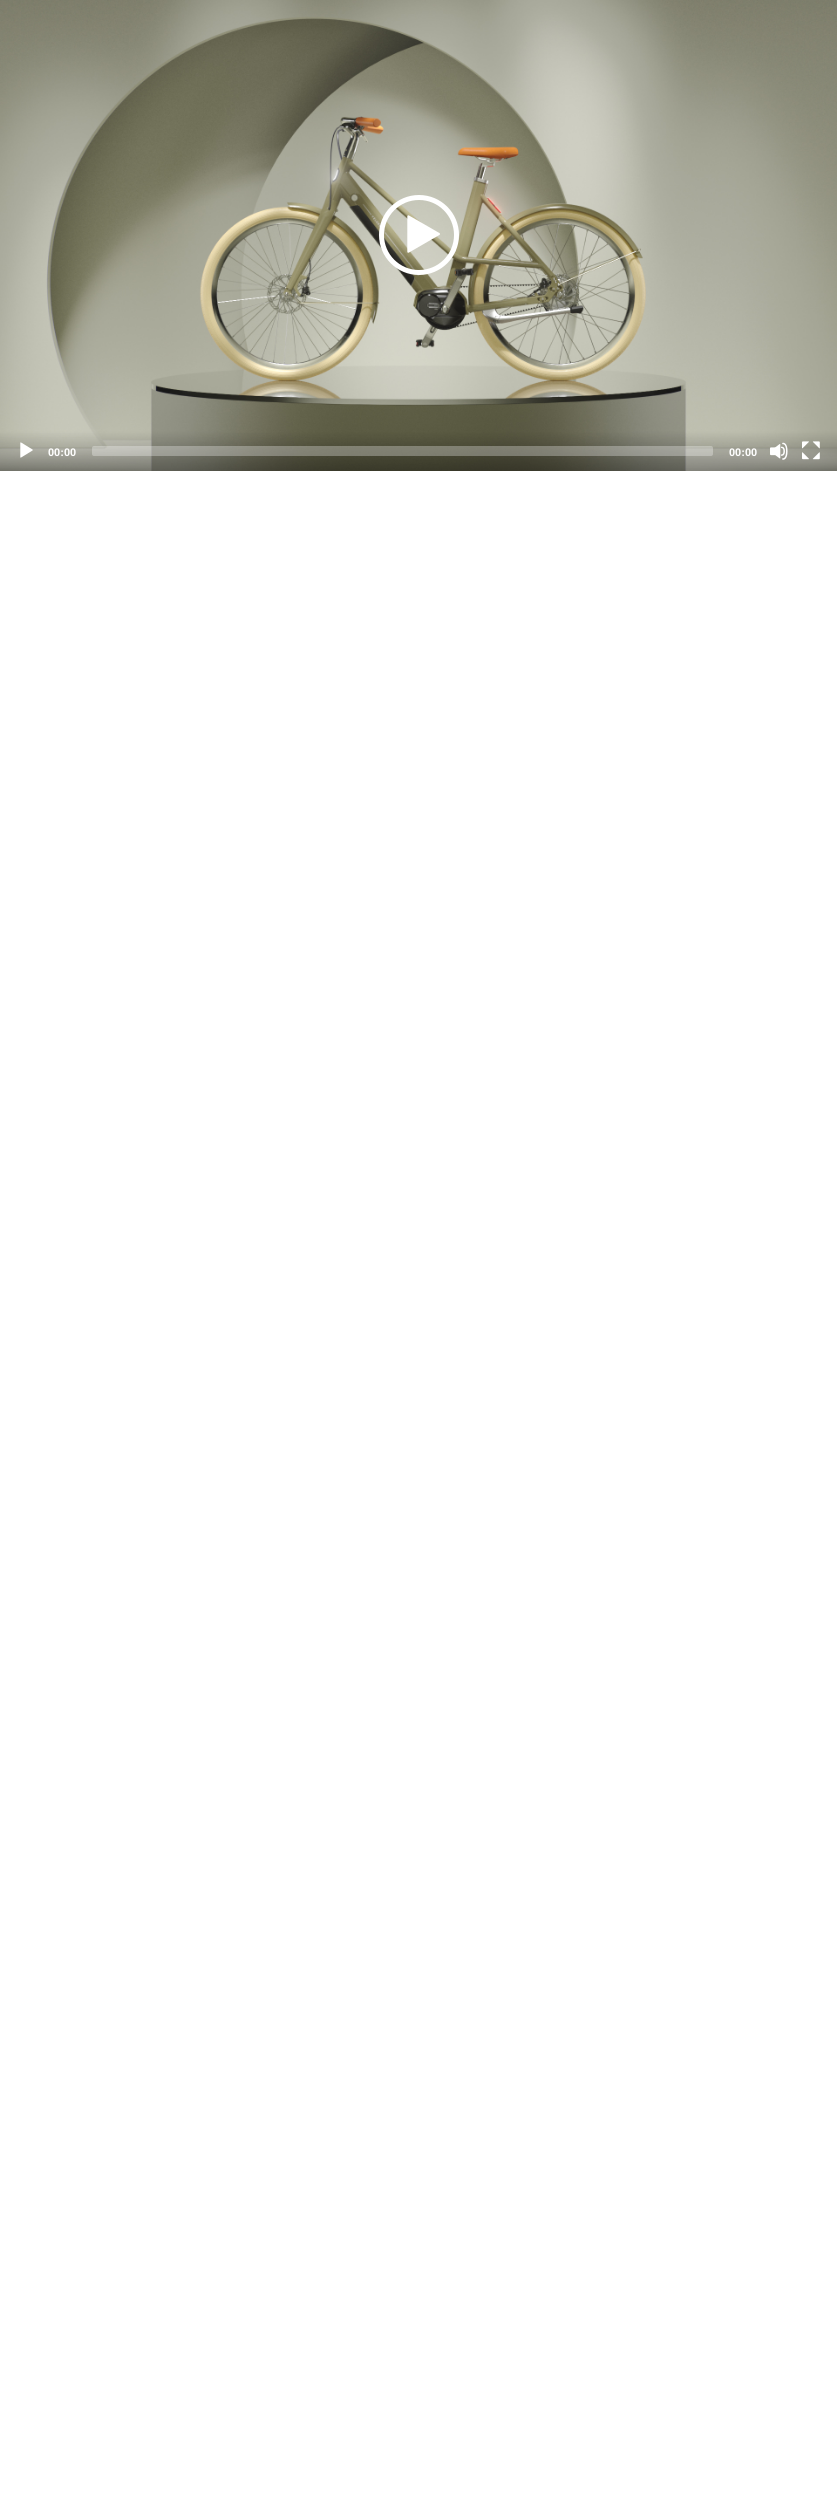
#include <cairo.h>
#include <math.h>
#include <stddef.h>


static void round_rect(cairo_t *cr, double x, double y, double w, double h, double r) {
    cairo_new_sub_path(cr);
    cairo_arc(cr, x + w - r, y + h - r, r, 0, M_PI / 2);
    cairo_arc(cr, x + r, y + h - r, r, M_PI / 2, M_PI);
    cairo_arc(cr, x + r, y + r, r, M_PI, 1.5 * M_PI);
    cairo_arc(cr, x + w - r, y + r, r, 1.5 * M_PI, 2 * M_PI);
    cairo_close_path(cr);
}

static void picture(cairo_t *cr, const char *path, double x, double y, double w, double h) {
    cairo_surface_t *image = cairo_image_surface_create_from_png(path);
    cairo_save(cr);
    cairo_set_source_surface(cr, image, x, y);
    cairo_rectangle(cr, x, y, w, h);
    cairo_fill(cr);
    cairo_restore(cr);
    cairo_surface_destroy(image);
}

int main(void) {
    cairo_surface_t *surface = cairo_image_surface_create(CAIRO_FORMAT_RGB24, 837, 2514);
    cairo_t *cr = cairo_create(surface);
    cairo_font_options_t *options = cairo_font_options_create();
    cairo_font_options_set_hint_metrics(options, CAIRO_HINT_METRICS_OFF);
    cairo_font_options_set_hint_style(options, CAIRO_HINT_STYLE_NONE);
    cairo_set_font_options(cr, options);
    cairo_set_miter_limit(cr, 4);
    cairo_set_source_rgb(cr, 1, 1, 1);
    cairo_paint(cr);
    picture(cr, "img1.png", 0, 0, 837, 471);
    picture(cr, "img2.png", 156, 19, 525, 386);
    picture(cr, "img3.png", 379, 195, 80, 80);
    picture(cr, "img4.png", 20, 442, 13, 16);
    cairo_select_font_face(cr, "Liberation Sans", CAIRO_FONT_SLANT_NORMAL, CAIRO_FONT_WEIGHT_BOLD);
    cairo_set_font_size(cr, 11);
    cairo_set_source_rgb(cr, 1, 1, 1);
    cairo_move_to(cr, 48, 456);
    cairo_show_text(cr, "00:00");
    cairo_set_source_rgba(cr, 1, 1, 1, 0.3);
    round_rect(cr, 92, 446, 621, 10, 2);
    cairo_fill(cr);
    cairo_set_source_rgb(cr, 1, 1, 1);
    cairo_move_to(cr, 729, 456);
    cairo_show_text(cr, "00:00");
    picture(cr, "img5.png", 770, 442, 18, 18);
    picture(cr, "img6.png", 802, 441, 18, 19);
    cairo_surface_write_to_png(surface, "page.png");
    cairo_font_options_destroy(options);
    cairo_destroy(cr);
    cairo_surface_destroy(surface);
    return 0;
}
